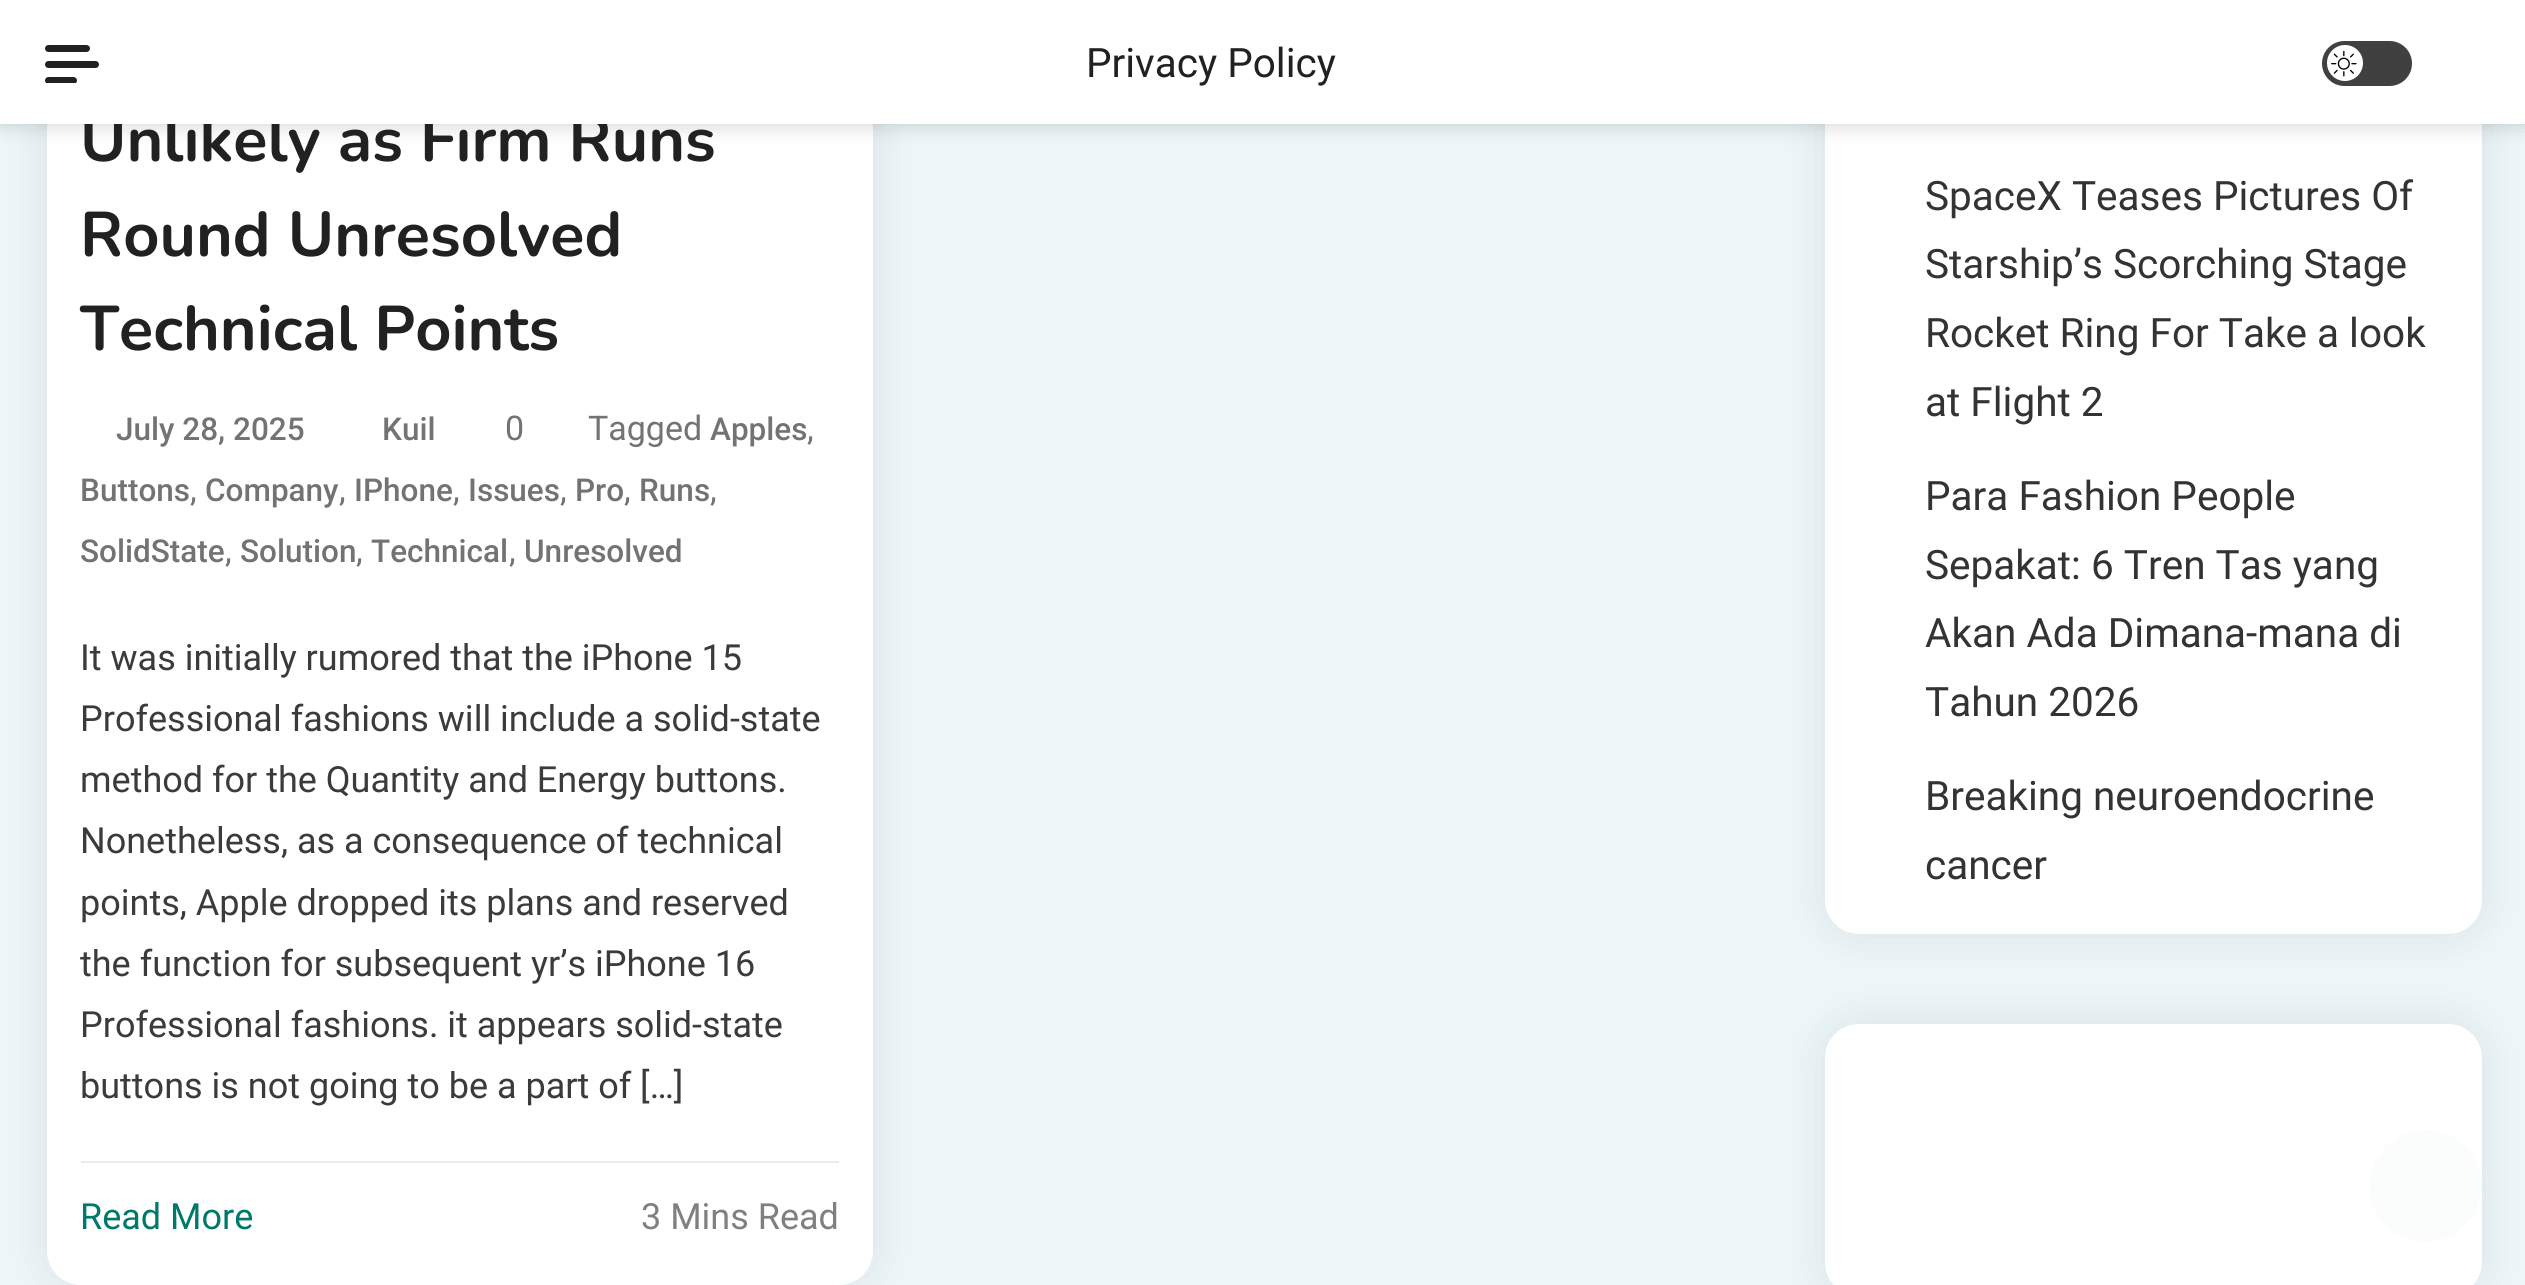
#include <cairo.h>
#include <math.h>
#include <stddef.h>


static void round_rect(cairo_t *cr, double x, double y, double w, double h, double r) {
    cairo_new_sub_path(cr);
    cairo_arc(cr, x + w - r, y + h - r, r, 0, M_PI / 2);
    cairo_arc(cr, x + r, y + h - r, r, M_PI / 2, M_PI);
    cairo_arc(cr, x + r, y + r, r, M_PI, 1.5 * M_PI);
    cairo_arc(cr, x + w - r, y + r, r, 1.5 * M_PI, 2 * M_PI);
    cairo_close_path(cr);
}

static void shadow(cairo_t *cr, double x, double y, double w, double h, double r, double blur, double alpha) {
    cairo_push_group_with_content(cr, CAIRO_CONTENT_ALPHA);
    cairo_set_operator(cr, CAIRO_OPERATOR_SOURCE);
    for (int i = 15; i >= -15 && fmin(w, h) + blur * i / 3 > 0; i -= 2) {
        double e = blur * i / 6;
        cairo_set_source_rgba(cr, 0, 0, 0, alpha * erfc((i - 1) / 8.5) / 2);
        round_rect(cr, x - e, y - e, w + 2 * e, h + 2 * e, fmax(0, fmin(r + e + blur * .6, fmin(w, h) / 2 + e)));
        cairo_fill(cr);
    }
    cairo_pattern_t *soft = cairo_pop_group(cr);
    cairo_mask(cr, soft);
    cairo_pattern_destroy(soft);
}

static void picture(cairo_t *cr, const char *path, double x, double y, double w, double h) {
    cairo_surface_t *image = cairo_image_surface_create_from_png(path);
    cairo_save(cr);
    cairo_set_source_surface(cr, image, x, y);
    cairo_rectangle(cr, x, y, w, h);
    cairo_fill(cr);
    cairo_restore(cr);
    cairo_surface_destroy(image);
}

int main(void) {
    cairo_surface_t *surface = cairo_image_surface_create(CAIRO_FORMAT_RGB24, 2525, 1285);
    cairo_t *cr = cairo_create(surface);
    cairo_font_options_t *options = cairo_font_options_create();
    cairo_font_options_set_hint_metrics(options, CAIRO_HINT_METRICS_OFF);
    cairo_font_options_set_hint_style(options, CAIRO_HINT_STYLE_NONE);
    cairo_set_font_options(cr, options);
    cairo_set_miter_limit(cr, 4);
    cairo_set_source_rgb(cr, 0.929, 0.965, 0.976);
    cairo_paint(cr);
    cairo_set_source_rgb(cr, 0, 0, 0);
    shadow(cr, 47, -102, 826, 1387, 34, 22.5, 0.1);
    cairo_set_source_rgb(cr, 1, 1, 1);
    round_rect(cr, 47, -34, 826, 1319, 34);
    cairo_fill(cr);
    cairo_set_source_rgb(cr, 0, 0, 0);
    shadow(cr, 1825, -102, 657, 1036, 34, 22.5, 0.1);
    cairo_set_source_rgb(cr, 1, 1, 1);
    round_rect(cr, 1825, -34, 657, 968, 34);
    cairo_fill(cr);
    cairo_set_source_rgb(cr, 0, 0, 0);
    shadow(cr, 0, 0, 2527, 124, 0, 11, 0.2);
    cairo_select_font_face(cr, "Nunito", CAIRO_FONT_SLANT_NORMAL, CAIRO_FONT_WEIGHT_BOLD);
    cairo_set_font_size(cr, 63);
    cairo_set_source_rgb(cr, 0.129, 0.129, 0.129);
    cairo_move_to(cr, 80, 161);
    cairo_show_text(cr, "Unlikely as Firm Runs");
    cairo_set_source_rgb(cr, 1, 1, 1);
    cairo_rectangle(cr, 0, 0, 2525, 124);
    cairo_fill(cr);
    cairo_set_source_rgb(cr, 0.129, 0.129, 0.129);
    round_rect(cr, 45, 45, 45, 7, 3.5);
    cairo_fill(cr);
    round_rect(cr, 45, 61, 54, 7, 3.5);
    cairo_fill(cr);
    cairo_save(cr);
    cairo_rectangle(cr, 45, 45, 54, 38);
    cairo_clip(cr);
    round_rect(cr, 45, 77, 32, 7, 3.5);
    cairo_fill(cr);
    cairo_restore(cr);
    cairo_select_font_face(cr, "Roboto", CAIRO_FONT_SLANT_NORMAL, CAIRO_FONT_WEIGHT_NORMAL);
    cairo_set_font_size(cr, 40.5);
    cairo_move_to(cr, 1086, 77);
    cairo_show_text(cr, "Privacy Policy");
    cairo_set_source_rgb(cr, 0.251, 0.251, 0.251);
    round_rect(cr, 2322, 41, 90, 45, 22.5);
    cairo_fill(cr);
    cairo_set_source_rgb(cr, 1, 1, 1);
    cairo_arc(cr, 2345, 63, 18, 0, 2 * M_PI);
    cairo_fill(cr);
    picture(cr, "img1.png", 2331, 50, 26, 27);
    cairo_select_font_face(cr, "Nunito", CAIRO_FONT_SLANT_NORMAL, CAIRO_FONT_WEIGHT_BOLD);
    cairo_set_font_size(cr, 63);
    cairo_set_source_rgb(cr, 0.129, 0.129, 0.129);
    cairo_move_to(cr, 80, 256);
    cairo_show_text(cr, "Round Unresolved");
    cairo_move_to(cr, 80, 350);
    cairo_show_text(cr, "Technical Points");
    cairo_select_font_face(cr, "Roboto", CAIRO_FONT_SLANT_NORMAL, CAIRO_FONT_WEIGHT_NORMAL);
    cairo_set_font_size(cr, 34);
    cairo_set_source_rgb(cr, 0.451, 0.451, 0.451);
    cairo_move_to(cr, 588, 440);
    cairo_show_text(cr, "Tagged");
    cairo_select_font_face(cr, "Roboto Medium", CAIRO_FONT_SLANT_NORMAL, CAIRO_FONT_WEIGHT_NORMAL);
    cairo_set_font_size(cr, 31.5);
    cairo_move_to(cr, 710, 440);
    cairo_show_text(cr, "Apples");
    cairo_select_font_face(cr, "Roboto", CAIRO_FONT_SLANT_NORMAL, CAIRO_FONT_WEIGHT_NORMAL);
    cairo_set_font_size(cr, 34);
    cairo_move_to(cr, 807, 440);
    cairo_show_text(cr, ",");
    cairo_select_font_face(cr, "Roboto Medium", CAIRO_FONT_SLANT_NORMAL, CAIRO_FONT_WEIGHT_NORMAL);
    cairo_set_font_size(cr, 31.5);
    cairo_move_to(cr, 80, 501);
    cairo_show_text(cr, "Buttons");
    cairo_select_font_face(cr, "Roboto", CAIRO_FONT_SLANT_NORMAL, CAIRO_FONT_WEIGHT_NORMAL);
    cairo_set_font_size(cr, 34);
    cairo_move_to(cr, 190, 501);
    cairo_show_text(cr, ",");
    cairo_select_font_face(cr, "Roboto Medium", CAIRO_FONT_SLANT_NORMAL, CAIRO_FONT_WEIGHT_NORMAL);
    cairo_set_font_size(cr, 31.5);
    cairo_move_to(cr, 205, 501);
    cairo_show_text(cr, "Company");
    cairo_select_font_face(cr, "Roboto", CAIRO_FONT_SLANT_NORMAL, CAIRO_FONT_WEIGHT_NORMAL);
    cairo_set_font_size(cr, 34);
    cairo_move_to(cr, 339, 501);
    cairo_show_text(cr, ",");
    cairo_select_font_face(cr, "Roboto Medium", CAIRO_FONT_SLANT_NORMAL, CAIRO_FONT_WEIGHT_NORMAL);
    cairo_set_font_size(cr, 31.5);
    cairo_move_to(cr, 354, 501);
    cairo_show_text(cr, "IPhone");
    cairo_select_font_face(cr, "Roboto", CAIRO_FONT_SLANT_NORMAL, CAIRO_FONT_WEIGHT_NORMAL);
    cairo_set_font_size(cr, 34);
    cairo_move_to(cr, 453, 501);
    cairo_show_text(cr, ",");
    cairo_select_font_face(cr, "Roboto Medium", CAIRO_FONT_SLANT_NORMAL, CAIRO_FONT_WEIGHT_NORMAL);
    cairo_set_font_size(cr, 31.5);
    cairo_move_to(cr, 468, 501);
    cairo_show_text(cr, "Issues");
    cairo_select_font_face(cr, "Roboto", CAIRO_FONT_SLANT_NORMAL, CAIRO_FONT_WEIGHT_NORMAL);
    cairo_set_font_size(cr, 34);
    cairo_move_to(cr, 560, 501);
    cairo_show_text(cr, ",");
    cairo_select_font_face(cr, "Roboto Medium", CAIRO_FONT_SLANT_NORMAL, CAIRO_FONT_WEIGHT_NORMAL);
    cairo_set_font_size(cr, 31.5);
    cairo_move_to(cr, 575, 501);
    cairo_show_text(cr, "Pro");
    cairo_select_font_face(cr, "Roboto", CAIRO_FONT_SLANT_NORMAL, CAIRO_FONT_WEIGHT_NORMAL);
    cairo_set_font_size(cr, 34);
    cairo_move_to(cr, 624, 501);
    cairo_show_text(cr, ",");
    cairo_select_font_face(cr, "Roboto Medium", CAIRO_FONT_SLANT_NORMAL, CAIRO_FONT_WEIGHT_NORMAL);
    cairo_set_font_size(cr, 31.5);
    cairo_move_to(cr, 639, 501);
    cairo_show_text(cr, "Runs");
    cairo_select_font_face(cr, "Roboto", CAIRO_FONT_SLANT_NORMAL, CAIRO_FONT_WEIGHT_NORMAL);
    cairo_set_font_size(cr, 34);
    cairo_move_to(cr, 710, 501);
    cairo_show_text(cr, ",");
    cairo_select_font_face(cr, "Roboto Medium", CAIRO_FONT_SLANT_NORMAL, CAIRO_FONT_WEIGHT_NORMAL);
    cairo_set_font_size(cr, 31.5);
    cairo_move_to(cr, 80, 562);
    cairo_show_text(cr, "SolidState");
    cairo_select_font_face(cr, "Roboto", CAIRO_FONT_SLANT_NORMAL, CAIRO_FONT_WEIGHT_NORMAL);
    cairo_set_font_size(cr, 34);
    cairo_move_to(cr, 225, 562);
    cairo_show_text(cr, ",");
    cairo_select_font_face(cr, "Roboto Medium", CAIRO_FONT_SLANT_NORMAL, CAIRO_FONT_WEIGHT_NORMAL);
    cairo_set_font_size(cr, 31.5);
    cairo_move_to(cr, 240, 562);
    cairo_show_text(cr, "Solution");
    cairo_select_font_face(cr, "Roboto", CAIRO_FONT_SLANT_NORMAL, CAIRO_FONT_WEIGHT_NORMAL);
    cairo_set_font_size(cr, 34);
    cairo_move_to(cr, 356, 562);
    cairo_show_text(cr, ",");
    cairo_select_font_face(cr, "Roboto Medium", CAIRO_FONT_SLANT_NORMAL, CAIRO_FONT_WEIGHT_NORMAL);
    cairo_set_font_size(cr, 31.5);
    cairo_move_to(cr, 371, 562);
    cairo_show_text(cr, "Technical");
    cairo_select_font_face(cr, "Roboto", CAIRO_FONT_SLANT_NORMAL, CAIRO_FONT_WEIGHT_NORMAL);
    cairo_set_font_size(cr, 34);
    cairo_move_to(cr, 509, 562);
    cairo_show_text(cr, ",");
    cairo_select_font_face(cr, "Roboto Medium", CAIRO_FONT_SLANT_NORMAL, CAIRO_FONT_WEIGHT_NORMAL);
    cairo_set_font_size(cr, 31.5);
    cairo_move_to(cr, 524, 562);
    cairo_show_text(cr, "Unresolved");
    cairo_move_to(cr, 116, 440);
    cairo_show_text(cr, "July 28, 2025");
    cairo_move_to(cr, 382, 440);
    cairo_show_text(cr, "Kuil");
    cairo_select_font_face(cr, "Roboto", CAIRO_FONT_SLANT_NORMAL, CAIRO_FONT_WEIGHT_NORMAL);
    cairo_set_font_size(cr, 34);
    cairo_move_to(cr, 505, 440);
    cairo_show_text(cr, "0");
    cairo_set_source_rgb(cr, 0.925, 0.925, 0.925);
    cairo_rectangle(cr, 81, 1161, 758, 2);
    cairo_fill(cr);
    cairo_set_font_size(cr, 36);
    cairo_set_source_rgb(cr, 0.231, 0.231, 0.231);
    cairo_move_to(cr, 80, 670);
    cairo_show_text(cr, "It was initially rumored that the iPhone 15");
    cairo_move_to(cr, 80, 731);
    cairo_show_text(cr, "Professional fashions will include a solid-state");
    cairo_move_to(cr, 80, 792);
    cairo_show_text(cr, "method for the Quantity and Energy buttons.");
    cairo_move_to(cr, 80, 853);
    cairo_show_text(cr, "Nonetheless, as a consequence of technical");
    cairo_move_to(cr, 80, 915);
    cairo_show_text(cr, "points, Apple dropped its plans and reserved");
    cairo_move_to(cr, 80, 976);
    cairo_show_text(cr, "the function for subsequent yr’s iPhone 16");
    cairo_move_to(cr, 80, 1037);
    cairo_show_text(cr, "Professional fashions. it appears solid-state");
    cairo_move_to(cr, 80, 1098);
    cairo_show_text(cr, "buttons is not going to be a part of […]");
    cairo_set_source_rgb(cr, 0, 0.475, 0.42);
    cairo_move_to(cr, 80, 1229);
    cairo_show_text(cr, "Read More");
    cairo_set_source_rgb(cr, 0.502, 0.502, 0.502);
    cairo_move_to(cr, 641, 1229);
    cairo_show_text(cr, "3 Mins Read");
    cairo_set_font_size(cr, 40.5);
    cairo_set_source_rgb(cr, 0.2, 0.2, 0.2);
    cairo_move_to(cr, 1925, 210);
    cairo_show_text(cr, "SpaceX Teases Pictures Of");
    cairo_move_to(cr, 1925, 278);
    cairo_show_text(cr, "Starship’s Scorching Stage");
    cairo_move_to(cr, 1925, 347);
    cairo_show_text(cr, "Rocket Ring For Take a look");
    cairo_move_to(cr, 1925, 416);
    cairo_show_text(cr, "at Flight 2");
    cairo_move_to(cr, 1925, 510);
    cairo_show_text(cr, "Para Fashion People");
    cairo_move_to(cr, 1925, 579);
    cairo_show_text(cr, "Sepakat: 6 Tren Tas yang");
    cairo_move_to(cr, 1925, 647);
    cairo_show_text(cr, "Akan Ada Dimana-mana di");
    cairo_move_to(cr, 1925, 716);
    cairo_show_text(cr, "Tahun 2026");
    cairo_move_to(cr, 1925, 810);
    cairo_show_text(cr, "Breaking neuroendocrine");
    cairo_move_to(cr, 1925, 879);
    cairo_show_text(cr, "cancer");
    cairo_set_source_rgb(cr, 0, 0, 0);
    shadow(cr, 1825, 1024, 657, 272, 34, 22.5, 0.1);
    cairo_set_source_rgb(cr, 1, 1, 1);
    round_rect(cr, 1825, 1024, 657, 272, 34);
    cairo_fill(cr);
    cairo_set_source_rgb(cr, 0.984, 0.992, 0.992);
    round_rect(cr, 2369, 1130, 113, 112, 56);
    cairo_fill(cr);
    cairo_surface_write_to_png(surface, "page.png");
    cairo_font_options_destroy(options);
    cairo_destroy(cr);
    cairo_surface_destroy(surface);
    return 0;
}
